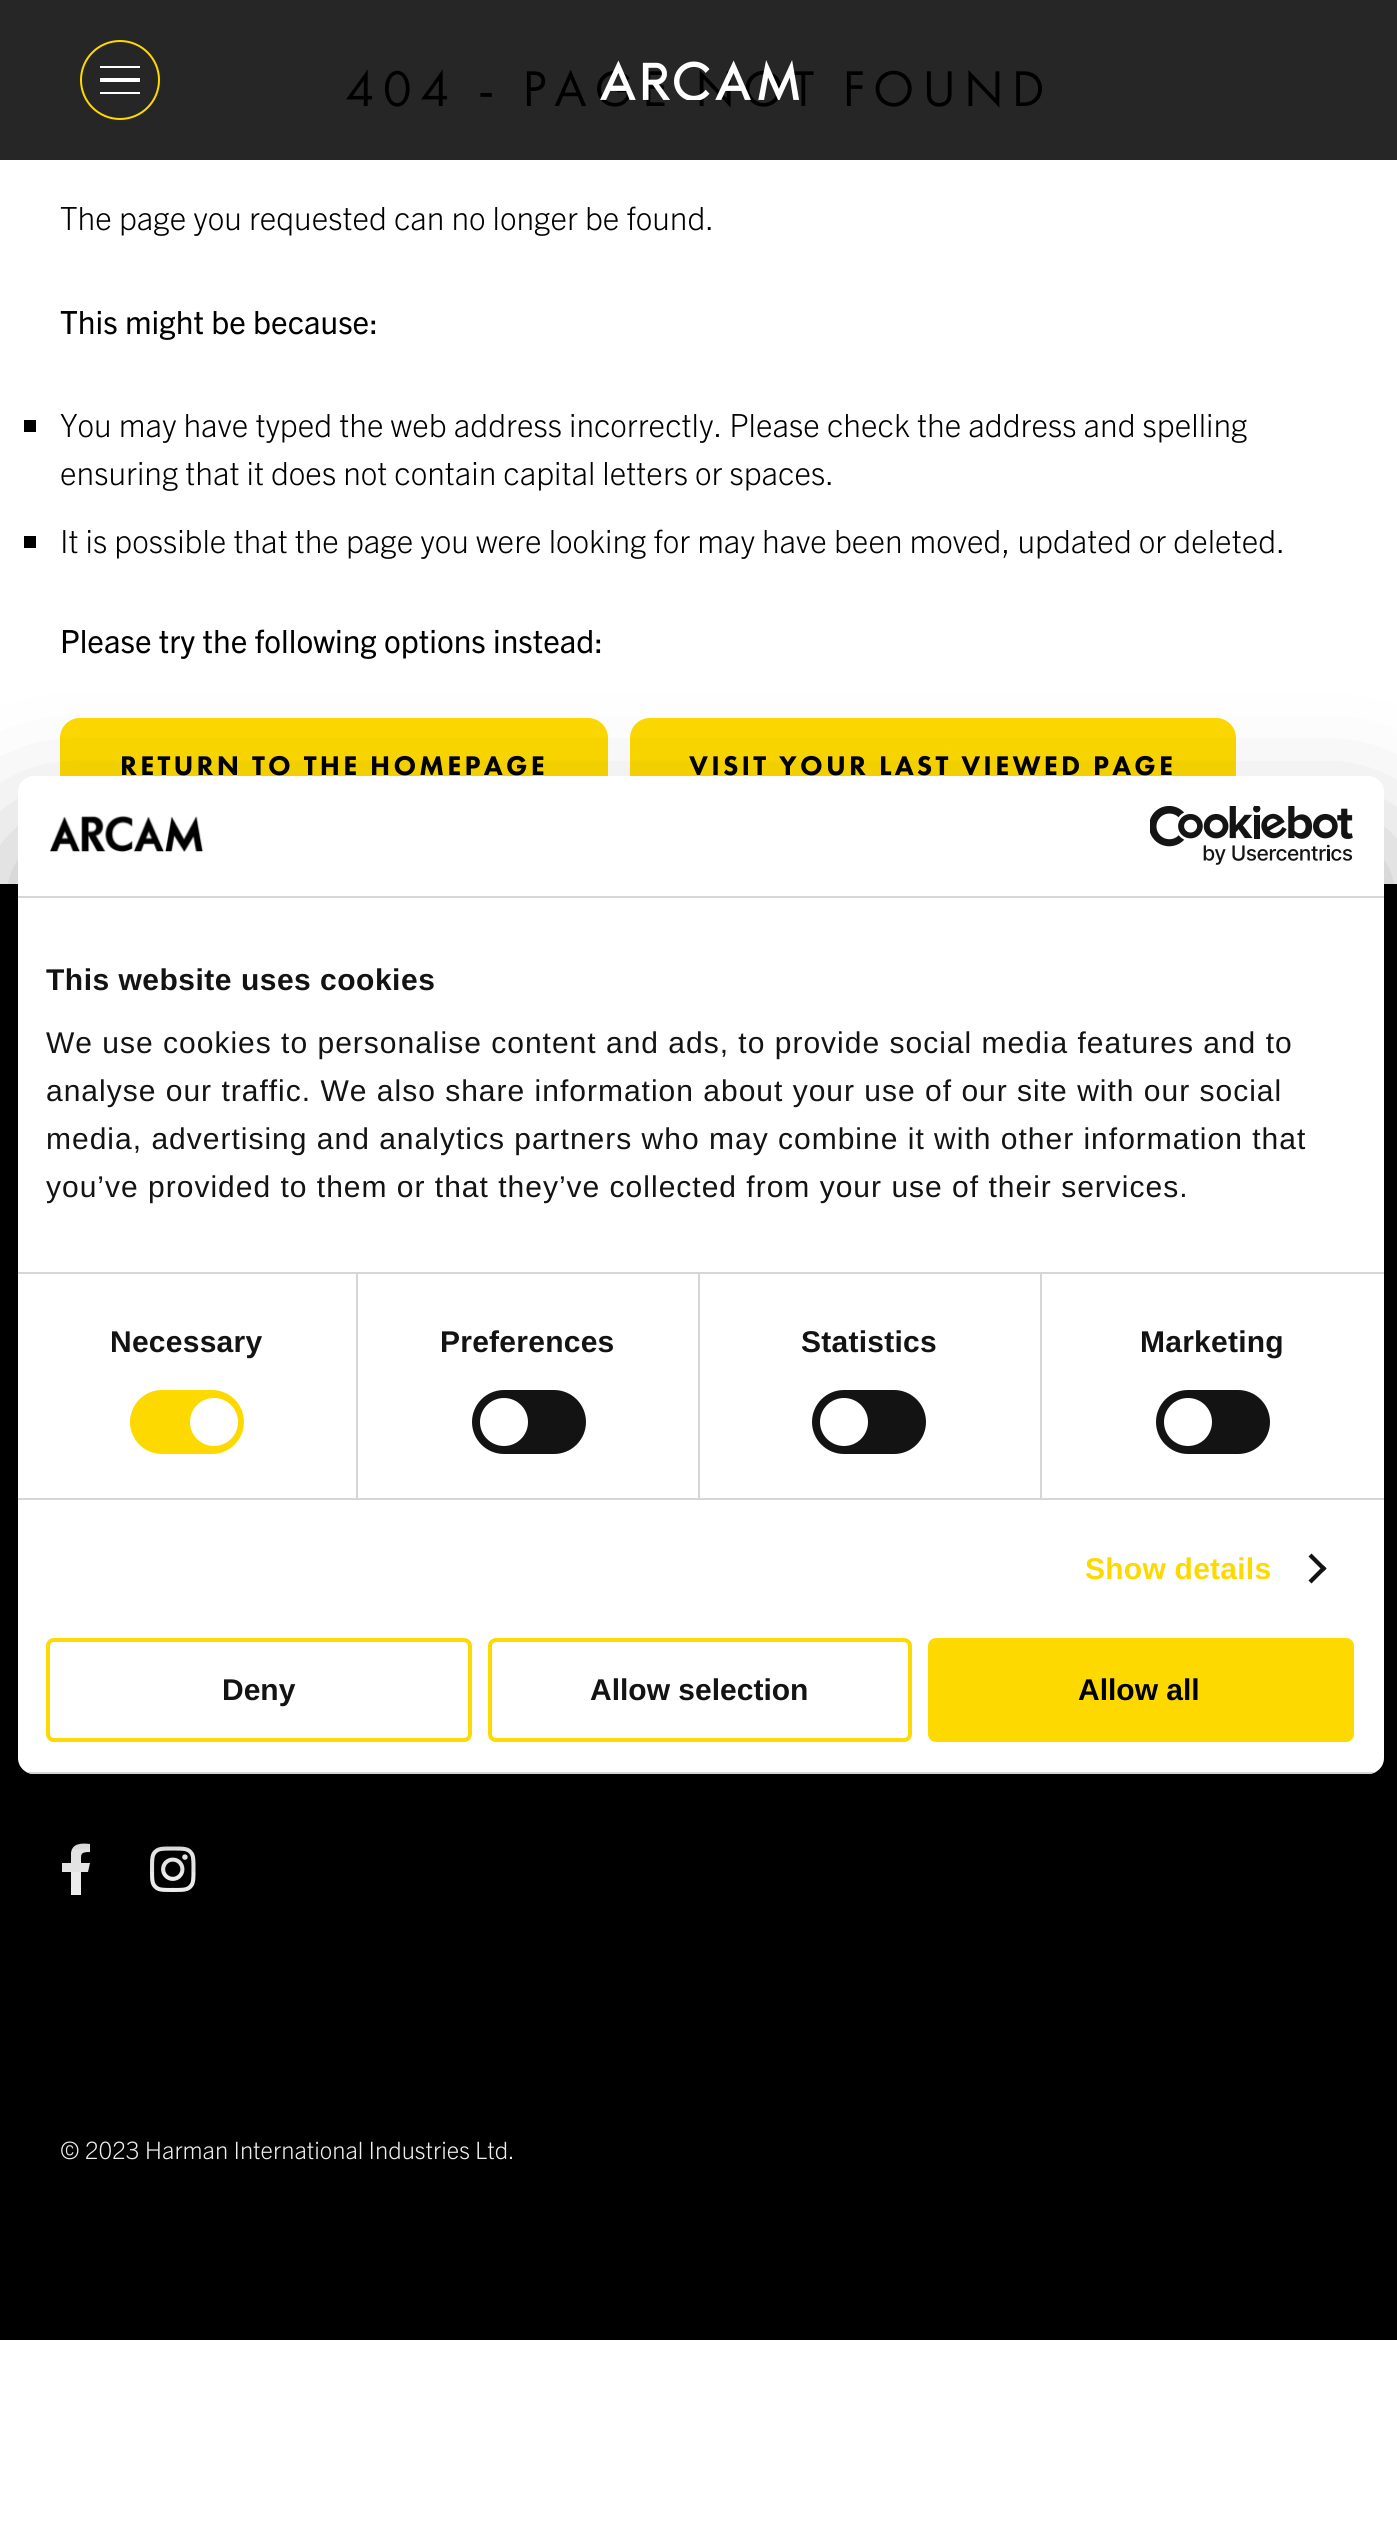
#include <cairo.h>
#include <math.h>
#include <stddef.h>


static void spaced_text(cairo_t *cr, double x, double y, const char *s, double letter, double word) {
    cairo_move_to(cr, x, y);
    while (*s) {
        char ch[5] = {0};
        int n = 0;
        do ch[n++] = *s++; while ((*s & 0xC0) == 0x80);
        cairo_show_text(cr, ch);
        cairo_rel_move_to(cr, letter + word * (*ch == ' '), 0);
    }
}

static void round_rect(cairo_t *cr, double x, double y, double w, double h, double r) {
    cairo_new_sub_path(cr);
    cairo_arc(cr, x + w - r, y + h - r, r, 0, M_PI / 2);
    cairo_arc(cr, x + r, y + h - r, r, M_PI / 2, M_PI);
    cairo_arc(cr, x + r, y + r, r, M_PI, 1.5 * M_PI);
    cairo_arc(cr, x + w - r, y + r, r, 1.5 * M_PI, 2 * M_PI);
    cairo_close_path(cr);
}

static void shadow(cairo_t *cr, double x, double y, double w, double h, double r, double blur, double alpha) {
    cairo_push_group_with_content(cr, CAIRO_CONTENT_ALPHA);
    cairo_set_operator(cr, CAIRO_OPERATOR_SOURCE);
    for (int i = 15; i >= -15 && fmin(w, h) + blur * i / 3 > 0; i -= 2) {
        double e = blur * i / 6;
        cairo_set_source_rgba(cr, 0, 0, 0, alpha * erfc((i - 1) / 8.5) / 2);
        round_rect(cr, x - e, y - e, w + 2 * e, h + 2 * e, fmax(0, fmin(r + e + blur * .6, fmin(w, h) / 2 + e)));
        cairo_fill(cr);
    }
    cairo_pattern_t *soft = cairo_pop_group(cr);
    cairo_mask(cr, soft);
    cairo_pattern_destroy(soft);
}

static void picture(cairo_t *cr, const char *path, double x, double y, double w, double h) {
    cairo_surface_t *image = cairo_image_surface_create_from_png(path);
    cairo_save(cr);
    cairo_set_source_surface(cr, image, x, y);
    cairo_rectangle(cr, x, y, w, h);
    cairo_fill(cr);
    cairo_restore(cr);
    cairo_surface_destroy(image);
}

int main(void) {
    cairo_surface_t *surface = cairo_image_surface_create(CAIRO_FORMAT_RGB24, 1397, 2546);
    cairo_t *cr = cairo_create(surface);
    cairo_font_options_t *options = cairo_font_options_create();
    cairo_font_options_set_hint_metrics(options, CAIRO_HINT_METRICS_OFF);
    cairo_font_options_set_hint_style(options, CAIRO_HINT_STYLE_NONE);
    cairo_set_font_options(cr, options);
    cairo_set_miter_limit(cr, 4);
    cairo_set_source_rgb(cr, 1, 1, 1);
    cairo_paint(cr);
    cairo_set_source_rgb(cr, 0.149, 0.149, 0.149);
    cairo_rectangle(cr, 0, 0, 1397, 160);
    cairo_fill(cr);
    cairo_arc(cr, 120, 80, 39, 0, 2 * M_PI);
    cairo_set_source_rgb(cr, 0.996, 0.851, 0);
    cairo_stroke(cr);
    cairo_set_source_rgb(cr, 1, 1, 1);
    cairo_rectangle(cr, 100, 66, 40, 2);
    cairo_fill(cr);
    cairo_rectangle(cr, 100, 78, 40, 4);
    cairo_fill(cr);
    cairo_rectangle(cr, 100, 92, 40, 2);
    cairo_fill(cr);
    cairo_select_font_face(cr, "Futura PT", CAIRO_FONT_SLANT_NORMAL, CAIRO_FONT_WEIGHT_NORMAL);
    cairo_set_font_size(cr, 52);
    cairo_set_source_rgb(cr, 0, 0, 0);
    spaced_text(cr, 345, 106, "404 - PAGE NOT FOUND", 8, 0);
    picture(cr, "img1.png", 600, 60, 200, 40);
    cairo_select_font_face(cr, "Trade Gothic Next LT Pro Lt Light", CAIRO_FONT_SLANT_NORMAL, CAIRO_FONT_WEIGHT_NORMAL);
    cairo_set_font_size(cr, 32);
    cairo_move_to(cr, 60, 230);
    cairo_show_text(cr, "The page you requested can no longer be found.");
    cairo_select_font_face(cr, "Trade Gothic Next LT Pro", CAIRO_FONT_SLANT_NORMAL, CAIRO_FONT_WEIGHT_NORMAL);
    cairo_move_to(cr, 60, 334);
    cairo_show_text(cr, "This might be because:");
    cairo_rectangle(cr, 24, 420, 12, 12);
    cairo_fill(cr);
    cairo_select_font_face(cr, "Trade Gothic Next LT Pro Lt Light", CAIRO_FONT_SLANT_NORMAL, CAIRO_FONT_WEIGHT_NORMAL);
    cairo_move_to(cr, 60, 437);
    cairo_show_text(cr, "You may have typed the web address incorrectly. Please check the address and spelling");
    cairo_move_to(cr, 60, 485);
    cairo_show_text(cr, "ensuring that it does not contain capital letters or spaces.");
    cairo_rectangle(cr, 24, 536, 12, 12);
    cairo_fill(cr);
    cairo_move_to(cr, 60, 553);
    cairo_show_text(cr, "It is possible that the page you were looking for may have been moved, updated or deleted.");
    cairo_select_font_face(cr, "Trade Gothic Next LT Pro", CAIRO_FONT_SLANT_NORMAL, CAIRO_FONT_WEIGHT_NORMAL);
    cairo_move_to(cr, 60, 653);
    cairo_show_text(cr, "Please try the following options instead:");
    cairo_set_source_rgb(cr, 0.996, 0.851, 0);
    round_rect(cr, 60, 718, 548, 96, 20);
    cairo_fill(cr);
    cairo_select_font_face(cr, "Futura PT Black", CAIRO_FONT_SLANT_NORMAL, CAIRO_FONT_WEIGHT_NORMAL);
    cairo_set_font_size(cr, 28);
    cairo_set_source_rgb(cr, 0, 0, 0);
    spaced_text(cr, 120, 775, "RETURN TO THE HOMEPAGE", 3.2, 0);
    cairo_set_source_rgb(cr, 0.996, 0.851, 0);
    round_rect(cr, 630, 718, 606, 96, 20);
    cairo_fill(cr);
    cairo_set_source_rgb(cr, 0, 0, 0);
    spaced_text(cr, 689, 775, "VISIT YOUR LAST VIEWED PAGE", 3.2, 0);
    cairo_rectangle(cr, 0, 884, 1397, 1456);
    cairo_fill(cr);
    cairo_set_source_rgb(cr, 1, 1, 1);
    cairo_new_path(cr);
    cairo_move_to(cr, 88, 1872);
    cairo_line_to(cr, 90, 1863);
    cairo_line_to(cr, 81, 1863);
    cairo_curve_to(cr, 81, 1854, 80, 1852, 90, 1852);
    cairo_line_to(cr, 90, 1844);
    cairo_curve_to(cr, 82, 1843, 72, 1843, 71, 1853);
    cairo_line_to(cr, 71, 1863);
    cairo_line_to(cr, 62, 1863);
    cairo_line_to(cr, 62, 1872);
    cairo_line_to(cr, 71, 1872);
    cairo_line_to(cr, 71, 1895);
    cairo_line_to(cr, 81, 1895);
    cairo_line_to(cr, 81, 1872);
    cairo_close_path(cr);
    cairo_fill(cr);
    picture(cr, "img2.png", 150, 1846, 46, 46);
    cairo_select_font_face(cr, "Trade Gothic Next LT Pro Lt Light", CAIRO_FONT_SLANT_NORMAL, CAIRO_FONT_WEIGHT_NORMAL);
    cairo_set_font_size(cr, 24);
    cairo_set_source_rgb(cr, 0.937, 0.937, 0.937);
    cairo_move_to(cr, 60, 2159);
    cairo_show_text(cr, "© 2023 Harman International Industries Ltd.");
    cairo_set_source_rgb(cr, 0, 0, 0);
    shadow(cr, 18, 840, 1366, 998, 16, 68, 0.3);
    cairo_set_source_rgb(cr, 1, 1, 1);
    round_rect(cr, 18, 776, 1366, 998, 16);
    cairo_fill(cr);
    cairo_set_source_rgb(cr, 0.839, 0.839, 0.839);
    cairo_rectangle(cr, 18, 896, 1366, 2);
    cairo_fill(cr);
    picture(cr, "img3.png", 49, 815, 155, 38);
    picture(cr, "img4.png", 1150, 806, 203, 59);
    cairo_rectangle(cr, 18, 1272, 1366, 2);
    cairo_fill(cr);
    cairo_select_font_face(cr, "Liberation Sans", CAIRO_FONT_SLANT_NORMAL, CAIRO_FONT_WEIGHT_BOLD);
    cairo_set_font_size(cr, 30);
    cairo_set_source_rgb(cr, 0.078, 0.078, 0.078);
    spaced_text(cr, 46, 990, "This website uses cookies", 0.5, 0);
    cairo_select_font_face(cr, "Liberation Sans", CAIRO_FONT_SLANT_NORMAL, CAIRO_FONT_WEIGHT_NORMAL);
    spaced_text(cr, 46, 1053, "We use cookies to personalise content and ads, to provide social media features and to", 1, 0);
    spaced_text(cr, 46, 1101, "analyse our traffic. We also share information about your use of our site with our social", 1, 0);
    spaced_text(cr, 46, 1149, "media, advertising and analytics partners who may combine it with other information that", 1, 0);
    spaced_text(cr, 46, 1197, "you’ve provided to them or that they’ve collected from your use of their services.", 1, 0);
    cairo_set_source_rgb(cr, 0.839, 0.839, 0.839);
    cairo_rectangle(cr, 18, 1498, 1366, 2);
    cairo_fill(cr);
    cairo_rectangle(cr, 356, 1274, 2, 224);
    cairo_fill(cr);
    cairo_select_font_face(cr, "Liberation Sans", CAIRO_FONT_SLANT_NORMAL, CAIRO_FONT_WEIGHT_BOLD);
    cairo_set_source_rgb(cr, 0.078, 0.078, 0.078);
    spaced_text(cr, 110, 1352, "Necessary", 0.25, 0);
    cairo_set_source_rgb(cr, 0.996, 0.851, 0);
    round_rect(cr, 130, 1390, 114, 64, 32);
    cairo_fill(cr);
    cairo_set_source_rgb(cr, 1, 1, 1);
    cairo_arc(cr, 214, 1422, 24, 0, 2 * M_PI);
    cairo_fill(cr);
    cairo_set_source_rgb(cr, 0.839, 0.839, 0.839);
    cairo_rectangle(cr, 698, 1274, 2, 224);
    cairo_fill(cr);
    cairo_set_source_rgb(cr, 0.078, 0.078, 0.078);
    spaced_text(cr, 440, 1352, "Preferences", 0.25, 0);
    round_rect(cr, 472, 1390, 114, 64, 32);
    cairo_fill(cr);
    cairo_set_source_rgb(cr, 1, 1, 1);
    cairo_arc(cr, 504, 1422, 24, 0, 2 * M_PI);
    cairo_fill(cr);
    cairo_set_source_rgb(cr, 0.839, 0.839, 0.839);
    cairo_rectangle(cr, 1040, 1274, 2, 224);
    cairo_fill(cr);
    cairo_set_source_rgb(cr, 0.078, 0.078, 0.078);
    spaced_text(cr, 801, 1352, "Statistics", 0.25, 0);
    round_rect(cr, 812, 1390, 114, 64, 32);
    cairo_fill(cr);
    cairo_set_source_rgb(cr, 1, 1, 1);
    cairo_arc(cr, 844, 1422, 24, 0, 2 * M_PI);
    cairo_fill(cr);
    cairo_set_source_rgb(cr, 0.078, 0.078, 0.078);
    spaced_text(cr, 1140, 1352, "Marketing", 0.25, 0);
    round_rect(cr, 1156, 1390, 114, 64, 32);
    cairo_fill(cr);
    cairo_set_source_rgb(cr, 1, 1, 1);
    cairo_arc(cr, 1188, 1422, 24, 0, 2 * M_PI);
    cairo_fill(cr);
    cairo_set_source_rgb(cr, 0.996, 0.851, 0);
    spaced_text(cr, 1085, 1579, "Show details", 0.25, 0);
    cairo_set_source_rgb(cr, 0.078, 0.078, 0.078);
    cairo_new_path(cr);
    cairo_move_to(cr, 1311.5, 1553.5);
    cairo_line_to(cr, 1326.5, 1568.5);
    cairo_line_to(cr, 1323.5, 1571.5);
    cairo_line_to(cr, 1308.5, 1556.5);
    cairo_close_path(cr);
    cairo_fill(cr);
    cairo_new_path(cr);
    cairo_move_to(cr, 1323.5, 1565.5);
    cairo_line_to(cr, 1326.5, 1568.5);
    cairo_line_to(cr, 1311.5, 1583.5);
    cairo_line_to(cr, 1308.5, 1580.5);
    cairo_close_path(cr);
    cairo_fill(cr);
    cairo_save(cr);
    round_rect(cr, 18, 776, 1366, 998, 16);
    cairo_clip(cr);
    cairo_set_source_rgb(cr, 0.839, 0.839, 0.839);
    cairo_rectangle(cr, 18, 1772, 1366, 2);
    cairo_fill(cr);
    cairo_restore(cr);
    round_rect(cr, 48, 1640, 422, 100, 6);
    cairo_set_source_rgb(cr, 0.996, 0.851, 0);
    cairo_set_line_width(cr, 4);
    cairo_stroke(cr);
    cairo_set_source_rgb(cr, 0.078, 0.078, 0.078);
    cairo_move_to(cr, 222, 1700);
    cairo_show_text(cr, "Deny");
    round_rect(cr, 490, 1640, 420, 100, 6);
    cairo_set_source_rgb(cr, 0.996, 0.851, 0);
    cairo_stroke(cr);
    cairo_set_source_rgb(cr, 0.078, 0.078, 0.078);
    cairo_move_to(cr, 590, 1700);
    cairo_show_text(cr, "Allow selection");
    cairo_set_source_rgb(cr, 0.996, 0.851, 0);
    round_rect(cr, 930, 1640, 422, 100, 6);
    cairo_fill_preserve(cr);
    cairo_stroke(cr);
    cairo_set_source_rgb(cr, 0, 0, 0);
    cairo_move_to(cr, 1078, 1700);
    cairo_show_text(cr, "Allow all");
    cairo_surface_write_to_png(surface, "page.png");
    cairo_font_options_destroy(options);
    cairo_destroy(cr);
    cairo_surface_destroy(surface);
    return 0;
}
